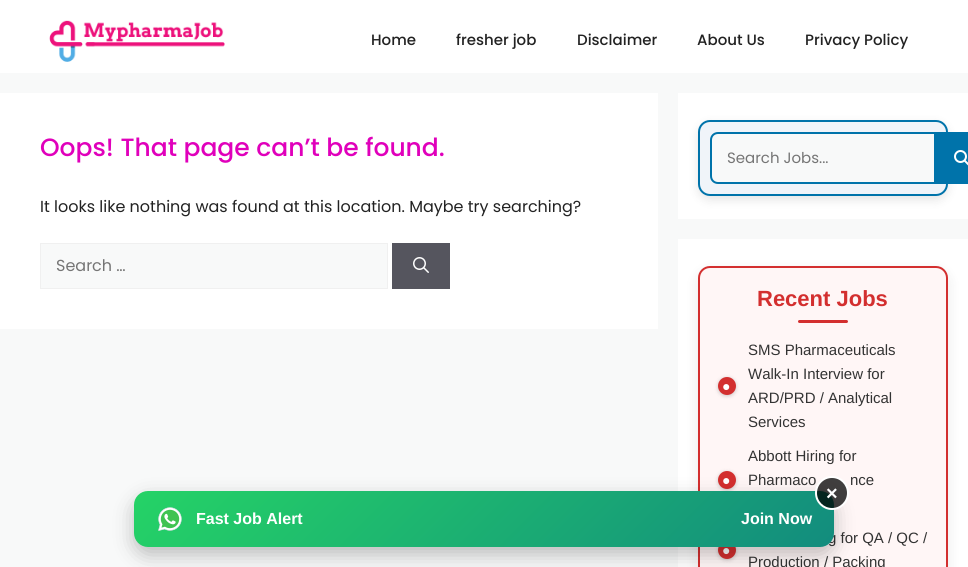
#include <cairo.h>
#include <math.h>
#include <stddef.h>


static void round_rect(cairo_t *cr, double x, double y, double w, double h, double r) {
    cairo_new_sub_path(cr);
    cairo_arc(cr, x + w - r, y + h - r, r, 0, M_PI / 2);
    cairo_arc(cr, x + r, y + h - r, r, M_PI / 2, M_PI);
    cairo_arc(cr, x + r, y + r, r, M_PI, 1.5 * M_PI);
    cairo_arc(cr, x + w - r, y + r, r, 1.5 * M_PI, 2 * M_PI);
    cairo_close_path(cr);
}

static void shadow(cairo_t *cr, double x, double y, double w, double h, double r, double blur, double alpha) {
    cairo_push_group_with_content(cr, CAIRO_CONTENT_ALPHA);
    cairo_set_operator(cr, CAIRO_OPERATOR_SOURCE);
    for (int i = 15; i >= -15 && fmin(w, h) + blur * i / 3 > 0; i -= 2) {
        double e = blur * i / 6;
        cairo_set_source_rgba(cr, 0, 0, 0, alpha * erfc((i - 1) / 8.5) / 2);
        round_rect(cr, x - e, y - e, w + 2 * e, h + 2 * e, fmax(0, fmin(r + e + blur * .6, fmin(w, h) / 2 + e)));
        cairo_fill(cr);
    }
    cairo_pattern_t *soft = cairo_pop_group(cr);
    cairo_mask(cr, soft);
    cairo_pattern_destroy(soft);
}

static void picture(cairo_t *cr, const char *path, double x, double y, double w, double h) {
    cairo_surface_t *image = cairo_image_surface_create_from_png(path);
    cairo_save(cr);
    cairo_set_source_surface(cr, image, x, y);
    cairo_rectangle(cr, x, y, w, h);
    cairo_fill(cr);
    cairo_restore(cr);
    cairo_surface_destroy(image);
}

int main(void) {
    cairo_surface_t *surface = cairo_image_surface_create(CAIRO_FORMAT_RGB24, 968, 567);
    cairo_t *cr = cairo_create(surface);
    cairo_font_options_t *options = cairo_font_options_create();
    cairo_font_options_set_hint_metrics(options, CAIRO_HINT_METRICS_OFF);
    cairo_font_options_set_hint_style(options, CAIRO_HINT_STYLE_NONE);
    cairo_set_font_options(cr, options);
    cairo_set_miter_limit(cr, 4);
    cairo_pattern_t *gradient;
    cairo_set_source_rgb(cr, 0.969, 0.973, 0.976);
    cairo_paint(cr);
    cairo_set_source_rgb(cr, 1, 1, 1);
    cairo_rectangle(cr, 0, 0, 968, 73);
    cairo_fill(cr);
    picture(cr, "img1.png", 49, 20, 176, 42);
    cairo_select_font_face(cr, "Poppins Medium", CAIRO_FONT_SLANT_NORMAL, CAIRO_FONT_WEIGHT_NORMAL);
    cairo_set_font_size(cr, 15);
    cairo_set_source_rgb(cr, 0.133, 0.133, 0.133);
    cairo_move_to(cr, 371, 45);
    cairo_show_text(cr, "Home");
    cairo_move_to(cr, 456, 45);
    cairo_show_text(cr, "fresher job");
    cairo_move_to(cr, 577, 45);
    cairo_show_text(cr, "Disclaimer");
    cairo_move_to(cr, 697, 45);
    cairo_show_text(cr, "About Us");
    cairo_move_to(cr, 805, 45);
    cairo_show_text(cr, "Privacy Policy");
    cairo_set_source_rgb(cr, 1, 1, 1);
    cairo_rectangle(cr, 0, 93, 658, 236);
    cairo_fill(cr);
    cairo_set_font_size(cr, 25);
    cairo_set_source_rgb(cr, 0.878, 0, 0.733);
    cairo_move_to(cr, 40, 156);
    cairo_show_text(cr, "Oops! That page can’t be found.");
    cairo_select_font_face(cr, "Poppins", CAIRO_FONT_SLANT_NORMAL, CAIRO_FONT_WEIGHT_NORMAL);
    cairo_set_font_size(cr, 16);
    cairo_set_source_rgb(cr, 0.133, 0.133, 0.133);
    cairo_move_to(cr, 40, 212);
    cairo_show_text(cr, "It looks like nothing was found at this location. Maybe try searching?");
    cairo_set_source_rgb(cr, 0.969, 0.973, 0.976);
    cairo_rectangle(cr, 40.5, 243.5, 347, 45);
    cairo_fill_preserve(cr);
    cairo_set_source_rgb(cr, 0.941, 0.941, 0.941);
    cairo_set_line_width(cr, 1);
    cairo_stroke(cr);
    cairo_set_source_rgb(cr, 0.459, 0.459, 0.459);
    cairo_move_to(cr, 56, 271);
    cairo_show_text(cr, "Search …");
    cairo_set_source_rgb(cr, 0.333, 0.333, 0.369);
    cairo_rectangle(cr, 392, 243, 58, 46);
    cairo_fill(cr);
    picture(cr, "img2.png", 413, 257, 16, 16);
    cairo_set_source_rgb(cr, 1, 1, 1);
    cairo_rectangle(cr, 678, 93, 290, 126);
    cairo_fill(cr);
    cairo_set_source_rgb(cr, 0, 0, 0);
    shadow(cr, 698, 124, 250, 76, 12, 5, 0.1);
    cairo_set_source_rgb(cr, 0.941, 0.957, 0.973);
    round_rect(cr, 699, 121, 248, 74, 11);
    cairo_fill_preserve(cr);
    cairo_set_source_rgb(cr, 0, 0.451, 0.667);
    cairo_set_line_width(cr, 2);
    cairo_stroke(cr);
    cairo_set_source_rgb(cr, 0.969, 0.973, 0.976);
    cairo_new_path(cr);
    cairo_move_to(cr, 718, 133);
    cairo_line_to(cr, 935, 133);
    cairo_line_to(cr, 935, 183);
    cairo_line_to(cr, 718, 183);
    cairo_curve_to(cr, 714, 183, 711, 180, 711, 176);
    cairo_line_to(cr, 711, 140);
    cairo_curve_to(cr, 711, 136, 714, 133, 718, 133);
    cairo_close_path(cr);
    cairo_fill_preserve(cr);
    cairo_set_source_rgb(cr, 0, 0.451, 0.667);
    cairo_stroke(cr);
    cairo_set_font_size(cr, 15);
    cairo_set_source_rgb(cr, 0.459, 0.459, 0.459);
    cairo_move_to(cr, 727, 163);
    cairo_show_text(cr, "Search Jobs...");
    cairo_set_source_rgb(cr, 0, 0.451, 0.667);
    cairo_rectangle(cr, 936, 132, 32, 52);
    cairo_fill(cr);
    picture(cr, "img3.png", 954, 150, 14, 16);
    cairo_set_source_rgb(cr, 1, 1, 1);
    cairo_rectangle(cr, 678, 239, 290, 328);
    cairo_fill(cr);
    cairo_set_source_rgb(cr, 0, 0, 0);
    shadow(cr, 698, 271, 250, 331, 12, 7.5, 0.08);
    cairo_set_source_rgb(cr, 1, 0.961, 0.961);
    round_rect(cr, 699, 267, 248, 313, 11);
    cairo_fill_preserve(cr);
    cairo_set_source_rgb(cr, 0.827, 0.184, 0.184);
    cairo_stroke(cr);
    cairo_select_font_face(cr, "Liberation Sans", CAIRO_FONT_SLANT_NORMAL, CAIRO_FONT_WEIGHT_BOLD);
    cairo_set_font_size(cr, 22);
    cairo_move_to(cr, 757, 306);
    cairo_show_text(cr, "Recent Jobs");
    round_rect(cr, 798, 320, 50, 3, 1.5);
    cairo_fill(cr);
    cairo_select_font_face(cr, "Liberation Sans", CAIRO_FONT_SLANT_NORMAL, CAIRO_FONT_WEIGHT_NORMAL);
    cairo_set_font_size(cr, 15);
    cairo_set_source_rgb(cr, 0.2, 0.2, 0.2);
    cairo_move_to(cr, 748, 355);
    cairo_show_text(cr, "SMS Pharmaceuticals");
    cairo_move_to(cr, 748, 379);
    cairo_show_text(cr, "Walk-In Interview for");
    cairo_set_source_rgb(cr, 0, 0, 0);
    shadow(cr, 718, 378, 18, 18, 9, 2, 0.2);
    cairo_set_source_rgb(cr, 0.827, 0.184, 0.184);
    cairo_arc(cr, 727, 386, 9, 0, 2 * M_PI);
    cairo_fill(cr);
    cairo_set_font_size(cr, 14);
    cairo_set_source_rgb(cr, 1, 1, 1);
    cairo_move_to(cr, 722, 391);
    cairo_show_text(cr, "●");
    cairo_set_font_size(cr, 15);
    cairo_set_source_rgb(cr, 0.2, 0.2, 0.2);
    cairo_move_to(cr, 748, 403);
    cairo_show_text(cr, "ARD/PRD / Analytical");
    cairo_move_to(cr, 748, 427);
    cairo_show_text(cr, "Services");
    cairo_move_to(cr, 748, 461);
    cairo_show_text(cr, "Abbott Hiring for");
    cairo_set_source_rgb(cr, 0, 0, 0);
    shadow(cr, 718, 472, 18, 18, 9, 2, 0.2);
    cairo_set_source_rgb(cr, 0.827, 0.184, 0.184);
    cairo_arc(cr, 727, 480, 9, 0, 2 * M_PI);
    cairo_fill(cr);
    cairo_set_font_size(cr, 14);
    cairo_set_source_rgb(cr, 1, 1, 1);
    cairo_move_to(cr, 722, 485);
    cairo_show_text(cr, "●");
    cairo_set_font_size(cr, 15);
    cairo_set_source_rgb(cr, 0.2, 0.2, 0.2);
    cairo_move_to(cr, 748, 485);
    cairo_show_text(cr, "Pharmaco");
    cairo_move_to(cr, 850, 485);
    cairo_show_text(cr, "nce");
    cairo_move_to(cr, 828, 543);
    cairo_show_text(cr, "g for QA / QC /");
    cairo_set_source_rgb(cr, 0, 0, 0);
    shadow(cr, 718, 542, 18, 18, 9, 2, 0.2);
    cairo_set_source_rgb(cr, 0.827, 0.184, 0.184);
    cairo_arc(cr, 727, 550, 9, 0, 2 * M_PI);
    cairo_fill(cr);
    cairo_set_font_size(cr, 14);
    cairo_set_source_rgb(cr, 1, 1, 1);
    cairo_move_to(cr, 722, 555);
    cairo_show_text(cr, "●");
    cairo_set_font_size(cr, 15);
    cairo_set_source_rgb(cr, 0.2, 0.2, 0.2);
    cairo_move_to(cr, 748, 567);
    cairo_show_text(cr, "Production / Packing");
    cairo_set_source_rgb(cr, 0, 0, 0);
    shadow(cr, 134, 499, 700, 56, 14, 10, 0.25);
    gradient = cairo_pattern_create_linear(295, 330, 673, 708);
    cairo_pattern_add_color_stop_rgba(gradient, 0, 0.145, 0.827, 0.4, 1);
    cairo_pattern_add_color_stop_rgba(gradient, 1, 0.071, 0.549, 0.494, 1);
    cairo_set_source(cr, gradient);
    cairo_pattern_destroy(gradient);
    round_rect(cr, 134, 491, 700, 56, 14);
    cairo_fill(cr);
    cairo_set_source_rgba(cr, 0, 0, 0, 0.75);
    cairo_arc(cr, 832, 493, 16, 0, 2 * M_PI);
    cairo_fill_preserve(cr);
    cairo_set_source_rgb(cr, 1, 1, 1);
    cairo_stroke(cr);
    cairo_select_font_face(cr, "Liberation Sans", CAIRO_FONT_SLANT_NORMAL, CAIRO_FONT_WEIGHT_BOLD);
    cairo_set_font_size(cr, 20);
    cairo_move_to(cr, 826, 500);
    cairo_show_text(cr, "×");
    picture(cr, "img4.png", 158, 507, 24, 24);
    cairo_set_font_size(cr, 16);
    cairo_move_to(cr, 196, 524);
    cairo_show_text(cr, "Fast Job Alert");
    cairo_move_to(cr, 741, 524);
    cairo_show_text(cr, "Join Now");
    cairo_surface_write_to_png(surface, "page.png");
    cairo_font_options_destroy(options);
    cairo_destroy(cr);
    cairo_surface_destroy(surface);
    return 0;
}
